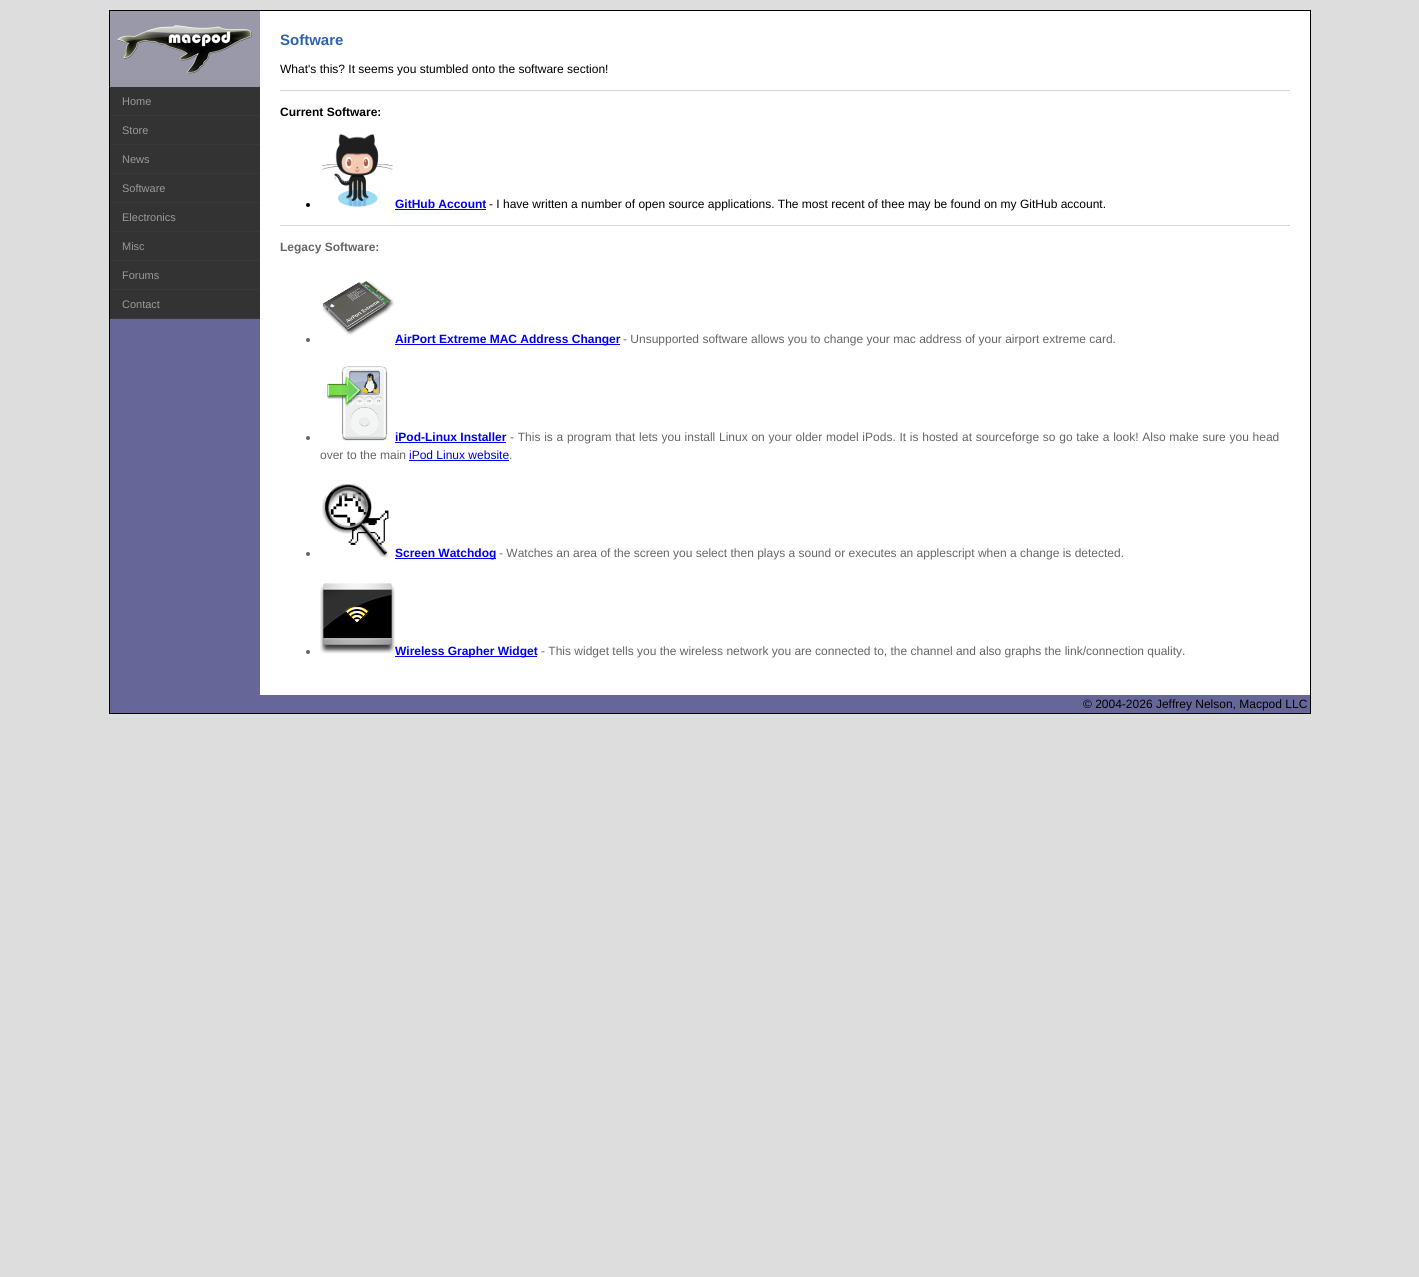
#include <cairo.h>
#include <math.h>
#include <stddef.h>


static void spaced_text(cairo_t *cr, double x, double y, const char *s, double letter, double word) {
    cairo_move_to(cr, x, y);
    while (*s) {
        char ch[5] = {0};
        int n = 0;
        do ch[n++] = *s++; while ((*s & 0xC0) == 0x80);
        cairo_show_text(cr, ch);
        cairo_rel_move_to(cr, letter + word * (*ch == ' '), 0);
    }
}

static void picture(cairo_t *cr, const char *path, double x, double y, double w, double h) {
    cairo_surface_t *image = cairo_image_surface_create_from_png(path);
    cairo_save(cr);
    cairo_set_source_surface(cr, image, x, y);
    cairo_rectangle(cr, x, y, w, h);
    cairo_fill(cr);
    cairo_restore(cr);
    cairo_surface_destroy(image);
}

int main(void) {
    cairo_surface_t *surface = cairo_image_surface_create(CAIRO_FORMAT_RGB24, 1419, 1277);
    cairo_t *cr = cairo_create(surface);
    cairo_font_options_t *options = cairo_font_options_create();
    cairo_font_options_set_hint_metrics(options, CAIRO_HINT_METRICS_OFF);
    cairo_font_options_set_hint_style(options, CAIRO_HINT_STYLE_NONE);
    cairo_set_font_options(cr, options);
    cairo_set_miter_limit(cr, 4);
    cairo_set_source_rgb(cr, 0.867, 0.867, 0.867);
    cairo_paint(cr);
    cairo_rectangle(cr, 109.5, 10.5, 1201, 703);
    cairo_set_source_rgb(cr, 0, 0, 0);
    cairo_set_line_width(cr, 1);
    cairo_stroke(cr);
    cairo_set_source_rgb(cr, 1, 1, 1);
    cairo_rectangle(cr, 260, 11, 1050, 684);
    cairo_fill(cr);
    cairo_set_source_rgb(cr, 0.4, 0.4, 0.6);
    cairo_rectangle(cr, 110, 75, 150, 620);
    cairo_fill(cr);
    picture(cr, "img1.png", 110, 11, 150, 76);
    picture(cr, "img2.png", 117, 25, 135, 49);
    cairo_set_source_rgb(cr, 0.2, 0.2, 0.2);
    cairo_rectangle(cr, 110, 87, 150, 28);
    cairo_fill(cr);
    cairo_set_source_rgb(cr, 0.224, 0.224, 0.224);
    cairo_rectangle(cr, 110, 115, 150, 1);
    cairo_fill(cr);
    cairo_select_font_face(cr, "Liberation Sans", CAIRO_FONT_SLANT_NORMAL, CAIRO_FONT_WEIGHT_NORMAL);
    cairo_set_font_size(cr, 11);
    cairo_set_source_rgb(cr, 0.6, 0.6, 0.6);
    cairo_move_to(cr, 122, 105);
    cairo_show_text(cr, "Home");
    cairo_set_source_rgb(cr, 0.2, 0.2, 0.2);
    cairo_rectangle(cr, 110, 116, 150, 28);
    cairo_fill(cr);
    cairo_set_source_rgb(cr, 0.224, 0.224, 0.224);
    cairo_rectangle(cr, 110, 144, 150, 1);
    cairo_fill(cr);
    cairo_set_source_rgb(cr, 0.6, 0.6, 0.6);
    cairo_move_to(cr, 122, 134);
    cairo_show_text(cr, "Store");
    cairo_set_source_rgb(cr, 0.2, 0.2, 0.2);
    cairo_rectangle(cr, 110, 145, 150, 28);
    cairo_fill(cr);
    cairo_set_source_rgb(cr, 0.224, 0.224, 0.224);
    cairo_rectangle(cr, 110, 173, 150, 1);
    cairo_fill(cr);
    cairo_set_source_rgb(cr, 0.6, 0.6, 0.6);
    cairo_move_to(cr, 122, 163);
    cairo_show_text(cr, "News");
    cairo_set_source_rgb(cr, 0.2, 0.2, 0.2);
    cairo_rectangle(cr, 110, 174, 150, 28);
    cairo_fill(cr);
    cairo_set_source_rgb(cr, 0.224, 0.224, 0.224);
    cairo_rectangle(cr, 110, 202, 150, 1);
    cairo_fill(cr);
    cairo_set_source_rgb(cr, 0.6, 0.6, 0.6);
    cairo_move_to(cr, 122, 192);
    cairo_show_text(cr, "Software");
    cairo_set_source_rgb(cr, 0.2, 0.2, 0.2);
    cairo_rectangle(cr, 110, 203, 150, 28);
    cairo_fill(cr);
    cairo_set_source_rgb(cr, 0.224, 0.224, 0.224);
    cairo_rectangle(cr, 110, 231, 150, 1);
    cairo_fill(cr);
    cairo_set_source_rgb(cr, 0.6, 0.6, 0.6);
    cairo_move_to(cr, 122, 221);
    cairo_show_text(cr, "Electronics");
    cairo_set_source_rgb(cr, 0.2, 0.2, 0.2);
    cairo_rectangle(cr, 110, 232, 150, 28);
    cairo_fill(cr);
    cairo_set_source_rgb(cr, 0.224, 0.224, 0.224);
    cairo_rectangle(cr, 110, 260, 150, 1);
    cairo_fill(cr);
    cairo_set_source_rgb(cr, 0.6, 0.6, 0.6);
    cairo_move_to(cr, 122, 250);
    cairo_show_text(cr, "Misc");
    cairo_set_source_rgb(cr, 0.2, 0.2, 0.2);
    cairo_rectangle(cr, 110, 261, 150, 28);
    cairo_fill(cr);
    cairo_set_source_rgb(cr, 0.224, 0.224, 0.224);
    cairo_rectangle(cr, 110, 289, 150, 1);
    cairo_fill(cr);
    cairo_set_source_rgb(cr, 0.6, 0.6, 0.6);
    cairo_move_to(cr, 122, 279);
    cairo_show_text(cr, "Forums");
    cairo_set_source_rgb(cr, 0.2, 0.2, 0.2);
    cairo_rectangle(cr, 110, 290, 150, 28);
    cairo_fill(cr);
    cairo_set_source_rgb(cr, 0.224, 0.224, 0.224);
    cairo_rectangle(cr, 110, 318, 150, 1);
    cairo_fill(cr);
    cairo_set_source_rgb(cr, 0.6, 0.6, 0.6);
    cairo_move_to(cr, 122, 308);
    cairo_show_text(cr, "Contact");
    cairo_select_font_face(cr, "Liberation Sans", CAIRO_FONT_SLANT_NORMAL, CAIRO_FONT_WEIGHT_BOLD);
    cairo_set_font_size(cr, 15);
    cairo_set_source_rgb(cr, 0.184, 0.388, 0.686);
    cairo_move_to(cr, 280, 45);
    cairo_show_text(cr, "Software");
    cairo_select_font_face(cr, "Liberation Sans", CAIRO_FONT_SLANT_NORMAL, CAIRO_FONT_WEIGHT_NORMAL);
    cairo_set_font_size(cr, 12);
    cairo_set_source_rgb(cr, 0, 0, 0);
    cairo_move_to(cr, 280, 73);
    cairo_show_text(cr, "What's this? It seems you stumbled onto the software section!");
    cairo_set_source_rgb(cr, 0.835, 0.835, 0.835);
    cairo_rectangle(cr, 280, 90, 1010, 1);
    cairo_fill(cr);
    cairo_select_font_face(cr, "Liberation Sans", CAIRO_FONT_SLANT_NORMAL, CAIRO_FONT_WEIGHT_BOLD);
    cairo_set_source_rgb(cr, 0, 0, 0);
    cairo_move_to(cr, 280, 116);
    cairo_show_text(cr, "Current Software:");
    cairo_new_path(cr);
    cairo_arc(cr, 308, 205, 2, 0, 2 * M_PI);
    cairo_fill(cr);
    picture(cr, "img3.png", 322, 134, 71, 73);
    cairo_set_source_rgb(cr, 0, 0, 0.933);
    cairo_move_to(cr, 395, 208);
    cairo_show_text(cr, "GitHub Account");
    cairo_rectangle(cr, 395, 209, 91, 1);
    cairo_fill(cr);
    cairo_select_font_face(cr, "Liberation Sans", CAIRO_FONT_SLANT_NORMAL, CAIRO_FONT_WEIGHT_NORMAL);
    cairo_set_source_rgb(cr, 0, 0, 0);
    cairo_move_to(cr, 489, 208);
    cairo_show_text(cr, "- I have written a number of open source applications. The most recent of thee may be found on my GitHub account.");
    cairo_set_source_rgb(cr, 0.835, 0.835, 0.835);
    cairo_rectangle(cr, 280, 225, 1010, 1);
    cairo_fill(cr);
    cairo_select_font_face(cr, "Liberation Sans", CAIRO_FONT_SLANT_NORMAL, CAIRO_FONT_WEIGHT_BOLD);
    cairo_set_source_rgb(cr, 0.4, 0.4, 0.4);
    cairo_move_to(cr, 280, 251);
    cairo_show_text(cr, "Legacy Software:");
    picture(cr, "img4.png", 322, 281, 73, 54);
    cairo_arc(cr, 308, 340, 2, 0, 2 * M_PI);
    cairo_fill(cr);
    cairo_set_source_rgb(cr, 0, 0, 0.933);
    cairo_rectangle(cr, 395, 344, 225, 1);
    cairo_fill(cr);
    cairo_move_to(cr, 395, 343);
    cairo_show_text(cr, "AirPort Extreme MAC Address Changer");
    cairo_select_font_face(cr, "Liberation Sans", CAIRO_FONT_SLANT_NORMAL, CAIRO_FONT_WEIGHT_NORMAL);
    cairo_set_source_rgb(cr, 0.4, 0.4, 0.4);
    cairo_move_to(cr, 623, 343);
    cairo_show_text(cr, "- Unsupported software allows you to change your mac address of your airport extreme card.");
    cairo_new_path(cr);
    cairo_arc(cr, 308, 438, 2, 0, 2 * M_PI);
    cairo_fill(cr);
    picture(cr, "img5.png", 327, 366, 61, 75);
    cairo_select_font_face(cr, "Liberation Sans", CAIRO_FONT_SLANT_NORMAL, CAIRO_FONT_WEIGHT_BOLD);
    cairo_set_source_rgb(cr, 0, 0, 0.933);
    cairo_move_to(cr, 395, 441);
    cairo_show_text(cr, "iPod-Linux Installer");
    cairo_rectangle(cr, 395, 442, 111, 1);
    cairo_fill(cr);
    cairo_select_font_face(cr, "Liberation Sans", CAIRO_FONT_SLANT_NORMAL, CAIRO_FONT_WEIGHT_NORMAL);
    cairo_set_source_rgb(cr, 0.4, 0.4, 0.4);
    spaced_text(cr, 510, 441, "- This is a program that lets you install Linux on your older model iPods. It is hosted at sourceforge so go take a look! Also make sure you head", 0, 0.4);
    cairo_move_to(cr, 320, 459);
    cairo_show_text(cr, "over to the main");
    cairo_set_source_rgb(cr, 0, 0, 0.933);
    cairo_move_to(cr, 409, 459);
    cairo_show_text(cr, "iPod Linux website");
    cairo_rectangle(cr, 409, 460, 100, 1);
    cairo_fill(cr);
    cairo_set_source_rgb(cr, 0.4, 0.4, 0.4);
    cairo_move_to(cr, 509, 459);
    cairo_show_text(cr, ".");
    cairo_new_path(cr);
    cairo_arc(cr, 308, 554, 2, 0, 2 * M_PI);
    cairo_fill(cr);
    picture(cr, "img6.png", 322, 484, 67, 73);
    cairo_set_source_rgb(cr, 0, 0, 0.933);
    cairo_rectangle(cr, 395, 558, 101, 1);
    cairo_fill(cr);
    cairo_select_font_face(cr, "Liberation Sans", CAIRO_FONT_SLANT_NORMAL, CAIRO_FONT_WEIGHT_BOLD);
    cairo_move_to(cr, 395, 557);
    cairo_show_text(cr, "Screen Watchdog");
    cairo_select_font_face(cr, "Liberation Sans", CAIRO_FONT_SLANT_NORMAL, CAIRO_FONT_WEIGHT_NORMAL);
    cairo_set_source_rgb(cr, 0.4, 0.4, 0.4);
    cairo_move_to(cr, 499, 557);
    cairo_show_text(cr, "- Watches an area of the screen you select then plays a sound or executes an applescript when a change is detected.");
    cairo_new_path(cr);
    cairo_arc(cr, 308, 652, 2, 0, 2 * M_PI);
    cairo_fill(cr);
    picture(cr, "img7.png", 320, 583, 75, 71);
    cairo_set_source_rgb(cr, 0, 0, 0.933);
    cairo_rectangle(cr, 395, 656, 142, 1);
    cairo_fill(cr);
    cairo_select_font_face(cr, "Liberation Sans", CAIRO_FONT_SLANT_NORMAL, CAIRO_FONT_WEIGHT_BOLD);
    cairo_move_to(cr, 395, 655);
    cairo_show_text(cr, "Wireless Grapher Widget");
    cairo_select_font_face(cr, "Liberation Sans", CAIRO_FONT_SLANT_NORMAL, CAIRO_FONT_WEIGHT_NORMAL);
    cairo_set_source_rgb(cr, 0.4, 0.4, 0.4);
    cairo_move_to(cr, 541, 655);
    cairo_show_text(cr, "- This widget tells you the wireless network you are connected to, the channel and also graphs the link/connection quality.");
    cairo_set_source_rgb(cr, 0.4, 0.4, 0.6);
    cairo_rectangle(cr, 110, 695, 1200, 18);
    cairo_fill(cr);
    cairo_set_source_rgb(cr, 0, 0, 0);
    cairo_move_to(cr, 1083, 708);
    cairo_show_text(cr, "© 2004-2026 Jeffrey Nelson, Macpod LLC");
    cairo_surface_write_to_png(surface, "page.png");
    cairo_font_options_destroy(options);
    cairo_destroy(cr);
    cairo_surface_destroy(surface);
    return 0;
}
